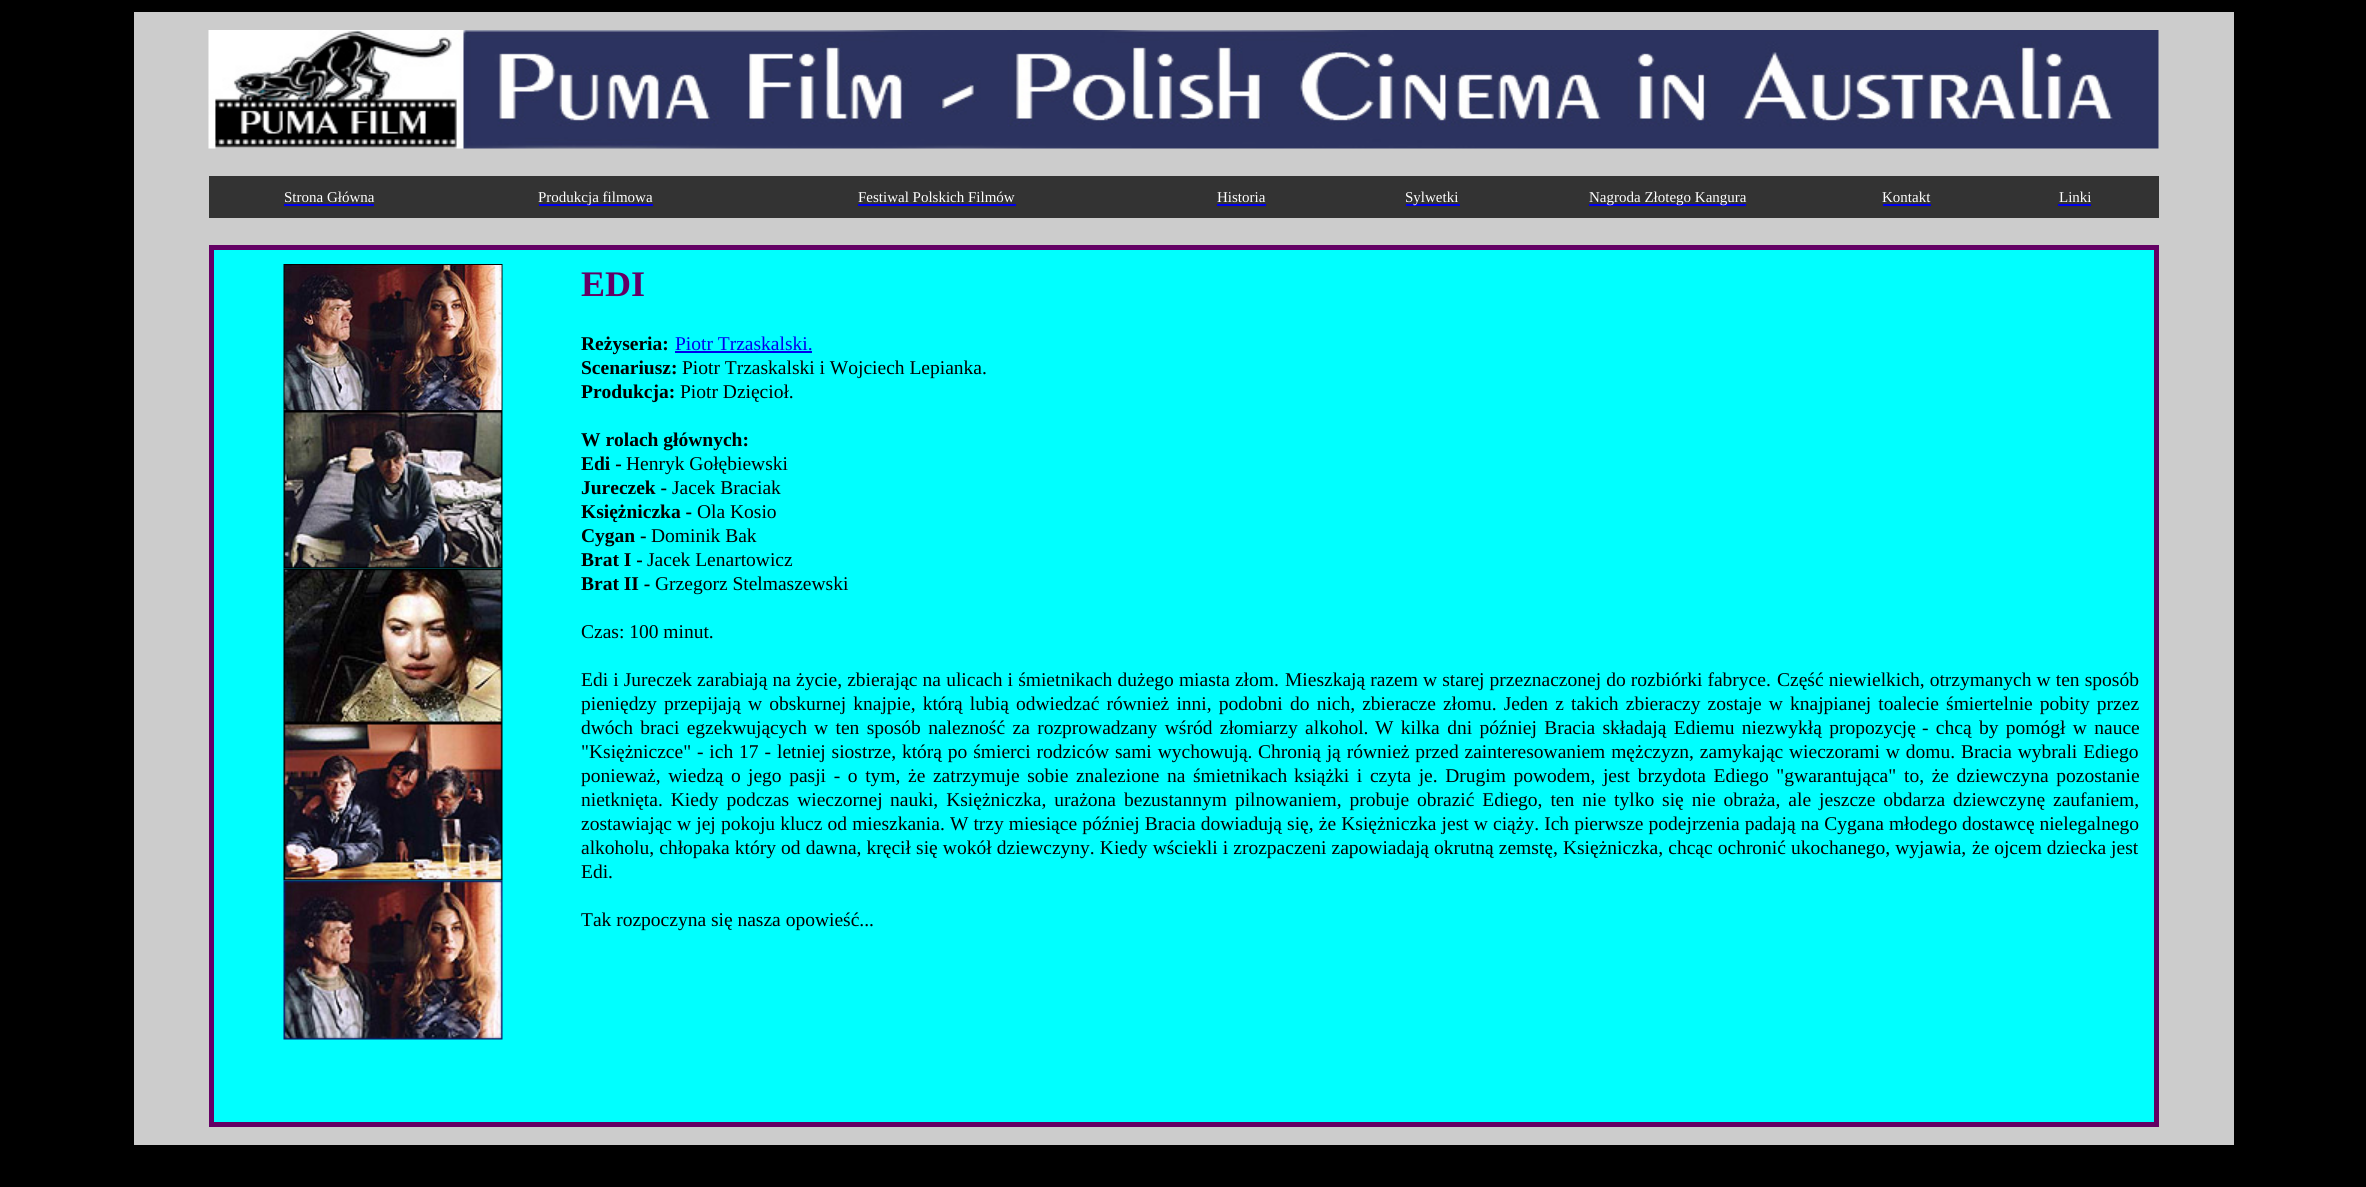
#include <cairo.h>
#include <math.h>
#include <stddef.h>


static void spaced_text(cairo_t *cr, double x, double y, const char *s, double letter, double word) {
    cairo_move_to(cr, x, y);
    while (*s) {
        char ch[5] = {0};
        int n = 0;
        do ch[n++] = *s++; while ((*s & 0xC0) == 0x80);
        cairo_show_text(cr, ch);
        cairo_rel_move_to(cr, letter + word * (*ch == ' '), 0);
    }
}

static void picture(cairo_t *cr, const char *path, double x, double y, double w, double h) {
    cairo_surface_t *image = cairo_image_surface_create_from_png(path);
    cairo_save(cr);
    cairo_set_source_surface(cr, image, x, y);
    cairo_rectangle(cr, x, y, w, h);
    cairo_fill(cr);
    cairo_restore(cr);
    cairo_surface_destroy(image);
}

int main(void) {
    cairo_surface_t *surface = cairo_image_surface_create(CAIRO_FORMAT_RGB24, 2366, 1187);
    cairo_t *cr = cairo_create(surface);
    cairo_font_options_t *options = cairo_font_options_create();
    cairo_font_options_set_hint_metrics(options, CAIRO_HINT_METRICS_OFF);
    cairo_font_options_set_hint_style(options, CAIRO_HINT_STYLE_NONE);
    cairo_set_font_options(cr, options);
    cairo_set_miter_limit(cr, 4);
    cairo_set_source_rgb(cr, 0, 0, 0);
    cairo_paint(cr);
    cairo_set_source_rgb(cr, 0.8, 0.8, 0.8);
    cairo_rectangle(cr, 134, 12, 2100, 1133);
    cairo_fill(cr);
    picture(cr, "img1.png", 208, 30, 1951, 119);
    cairo_set_source_rgb(cr, 0.2, 0.2, 0.2);
    cairo_rectangle(cr, 209, 176, 1950, 42);
    cairo_fill(cr);
    cairo_select_font_face(cr, "Liberation Serif", CAIRO_FONT_SLANT_NORMAL, CAIRO_FONT_WEIGHT_NORMAL);
    cairo_set_font_size(cr, 15);
    cairo_set_source_rgb(cr, 1, 1, 1);
    cairo_move_to(cr, 284, 202);
    cairo_show_text(cr, "Strona Główna");
    cairo_set_source_rgb(cr, 0, 0, 0.933);
    cairo_rectangle(cr, 284, 204, 90, 2);
    cairo_fill(cr);
    cairo_rectangle(cr, 539, 204, 114, 2);
    cairo_fill(cr);
    cairo_set_source_rgb(cr, 1, 1, 1);
    cairo_move_to(cr, 538, 202);
    cairo_show_text(cr, "Produkcja filmowa");
    cairo_move_to(cr, 858, 202);
    cairo_show_text(cr, "Festiwal Polskich Filmów");
    cairo_set_source_rgb(cr, 0, 0, 0.933);
    cairo_rectangle(cr, 858, 204, 158, 2);
    cairo_fill(cr);
    cairo_set_source_rgb(cr, 1, 1, 1);
    cairo_move_to(cr, 1217, 202);
    cairo_show_text(cr, "Historia");
    cairo_set_source_rgb(cr, 0, 0, 0.933);
    cairo_rectangle(cr, 1217, 204, 49, 2);
    cairo_fill(cr);
    cairo_rectangle(cr, 1406, 204, 54, 2);
    cairo_fill(cr);
    cairo_set_source_rgb(cr, 1, 1, 1);
    cairo_move_to(cr, 1405, 202);
    cairo_show_text(cr, "Sylwetki");
    cairo_set_source_rgb(cr, 0, 0, 0.933);
    cairo_rectangle(cr, 1589, 204, 157, 2);
    cairo_fill(cr);
    cairo_set_source_rgb(cr, 1, 1, 1);
    cairo_move_to(cr, 1589, 202);
    cairo_show_text(cr, "Nagroda Złotego Kangura");
    cairo_move_to(cr, 1882, 202);
    cairo_show_text(cr, "Kontakt");
    cairo_set_source_rgb(cr, 0, 0, 0.933);
    cairo_rectangle(cr, 1883, 204, 48, 2);
    cairo_fill(cr);
    cairo_set_source_rgb(cr, 1, 1, 1);
    cairo_move_to(cr, 2059, 202);
    cairo_show_text(cr, "Linki");
    cairo_set_source_rgb(cr, 0, 0, 0.933);
    cairo_rectangle(cr, 2058, 204, 33, 2);
    cairo_fill(cr);
    cairo_set_source_rgb(cr, 0, 1, 1);
    cairo_rectangle(cr, 211.5, 247.5, 1945, 877);
    cairo_fill_preserve(cr);
    cairo_set_source_rgb(cr, 0.392, 0, 0.392);
    cairo_set_line_width(cr, 5);
    cairo_stroke(cr);
    picture(cr, "img2.png", 283, 264, 220, 147);
    picture(cr, "img3.png", 283, 411, 220, 158);
    picture(cr, "img4.png", 283, 568, 220, 155);
    picture(cr, "img5.png", 283, 723, 220, 158);
    picture(cr, "img6.png", 283, 880, 220, 160);
    cairo_select_font_face(cr, "Liberation Serif", CAIRO_FONT_SLANT_NORMAL, CAIRO_FONT_WEIGHT_BOLD);
    cairo_set_font_size(cr, 36);
    cairo_move_to(cr, 581, 296);
    cairo_show_text(cr, "EDI");
    cairo_set_font_size(cr, 19.5);
    cairo_set_source_rgb(cr, 0, 0, 0);
    cairo_move_to(cr, 581, 350);
    cairo_show_text(cr, "Reżyseria:");
    cairo_select_font_face(cr, "Liberation Serif", CAIRO_FONT_SLANT_NORMAL, CAIRO_FONT_WEIGHT_NORMAL);
    cairo_set_source_rgb(cr, 0, 0, 0.933);
    cairo_move_to(cr, 675, 350);
    cairo_show_text(cr, "Piotr Trzaskalski.");
    cairo_rectangle(cr, 675, 351, 137, 2);
    cairo_fill(cr);
    cairo_select_font_face(cr, "Liberation Serif", CAIRO_FONT_SLANT_NORMAL, CAIRO_FONT_WEIGHT_BOLD);
    cairo_set_source_rgb(cr, 0, 0, 0);
    cairo_move_to(cr, 581, 374);
    cairo_show_text(cr, "Scenariusz:");
    cairo_select_font_face(cr, "Liberation Serif", CAIRO_FONT_SLANT_NORMAL, CAIRO_FONT_WEIGHT_NORMAL);
    cairo_move_to(cr, 682, 374);
    cairo_show_text(cr, "Piotr Trzaskalski i Wojciech Lepianka.");
    cairo_select_font_face(cr, "Liberation Serif", CAIRO_FONT_SLANT_NORMAL, CAIRO_FONT_WEIGHT_BOLD);
    cairo_move_to(cr, 581, 398);
    cairo_show_text(cr, "Produkcja:");
    cairo_select_font_face(cr, "Liberation Serif", CAIRO_FONT_SLANT_NORMAL, CAIRO_FONT_WEIGHT_NORMAL);
    cairo_move_to(cr, 680, 398);
    cairo_show_text(cr, "Piotr Dzięcioł.");
    cairo_select_font_face(cr, "Liberation Serif", CAIRO_FONT_SLANT_NORMAL, CAIRO_FONT_WEIGHT_BOLD);
    cairo_move_to(cr, 581, 446);
    cairo_show_text(cr, "W rolach głównych:");
    cairo_move_to(cr, 581, 470);
    cairo_show_text(cr, "Edi -");
    cairo_select_font_face(cr, "Liberation Serif", CAIRO_FONT_SLANT_NORMAL, CAIRO_FONT_WEIGHT_NORMAL);
    cairo_move_to(cr, 626, 470);
    cairo_show_text(cr, "Henryk Gołębiewski");
    cairo_select_font_face(cr, "Liberation Serif", CAIRO_FONT_SLANT_NORMAL, CAIRO_FONT_WEIGHT_BOLD);
    cairo_move_to(cr, 581, 494);
    cairo_show_text(cr, "Jureczek -");
    cairo_select_font_face(cr, "Liberation Serif", CAIRO_FONT_SLANT_NORMAL, CAIRO_FONT_WEIGHT_NORMAL);
    cairo_move_to(cr, 672, 494);
    cairo_show_text(cr, "Jacek Braciak");
    cairo_select_font_face(cr, "Liberation Serif", CAIRO_FONT_SLANT_NORMAL, CAIRO_FONT_WEIGHT_BOLD);
    cairo_move_to(cr, 581, 518);
    cairo_show_text(cr, "Księżniczka -");
    cairo_select_font_face(cr, "Liberation Serif", CAIRO_FONT_SLANT_NORMAL, CAIRO_FONT_WEIGHT_NORMAL);
    cairo_move_to(cr, 697, 518);
    cairo_show_text(cr, "Ola Kosio");
    cairo_select_font_face(cr, "Liberation Serif", CAIRO_FONT_SLANT_NORMAL, CAIRO_FONT_WEIGHT_BOLD);
    cairo_move_to(cr, 581, 542);
    cairo_show_text(cr, "Cygan -");
    cairo_select_font_face(cr, "Liberation Serif", CAIRO_FONT_SLANT_NORMAL, CAIRO_FONT_WEIGHT_NORMAL);
    cairo_move_to(cr, 651, 542);
    cairo_show_text(cr, "Dominik Bak");
    cairo_select_font_face(cr, "Liberation Serif", CAIRO_FONT_SLANT_NORMAL, CAIRO_FONT_WEIGHT_BOLD);
    cairo_move_to(cr, 581, 566);
    cairo_show_text(cr, "Brat I -");
    cairo_select_font_face(cr, "Liberation Serif", CAIRO_FONT_SLANT_NORMAL, CAIRO_FONT_WEIGHT_NORMAL);
    cairo_move_to(cr, 647, 566);
    cairo_show_text(cr, "Jacek Lenartowicz");
    cairo_select_font_face(cr, "Liberation Serif", CAIRO_FONT_SLANT_NORMAL, CAIRO_FONT_WEIGHT_BOLD);
    cairo_move_to(cr, 581, 590);
    cairo_show_text(cr, "Brat II -");
    cairo_select_font_face(cr, "Liberation Serif", CAIRO_FONT_SLANT_NORMAL, CAIRO_FONT_WEIGHT_NORMAL);
    cairo_move_to(cr, 655, 590);
    cairo_show_text(cr, "Grzegorz Stelmaszewski");
    cairo_move_to(cr, 581, 638);
    cairo_show_text(cr, "Czas: 100 minut.");
    spaced_text(cr, 581, 686, "Edi i Jureczek zarabiają na", 0, 0.25);
    spaced_text(cr, 796, 686, "życie, zbierając na ulicach i śmietnikach dużego miasta złom.", 0, 0.25);
    spaced_text(cr, 1285, 686, "Mieszkają razem w starej przeznaczonej do rozbiórki fabryce.", 0, 0.25);
    spaced_text(cr, 1777, 686, "Część niewielkich, otrzymanych w ten sposób", 0, 0.25);
    spaced_text(cr, 581, 710, "pieniędzy przepijają", 0, 2.25);
    spaced_text(cr, 748, 710, "w obskurnej knajpie, którą lubią odwiedzać również inni, podobni", 0, 2.25);
    spaced_text(cr, 1290, 710, "do nich, zbieracze złomu. Jeden z takich zbieraczy zostaje w", 0, 2.25);
    spaced_text(cr, 1790, 710, "knajpianej toalecie śmiertelnie pobity przez", 0, 2.25);
    spaced_text(cr, 581, 734, "dwóch braci egzekwujących", 0, 2.5);
    spaced_text(cr, 814, 734, "w ten sposób nalezność za rozprowadzany wśród złomiarzy alkohol.", 0, 2.5);
    spaced_text(cr, 1375, 734, "W kilka dni później Bracia składają Ediemu niezwykłą propozycję", 0, 2.5);
    spaced_text(cr, 1922, 734, "- chcą by pomógł w nauce", 0, 2.5);
    spaced_text(cr, 581, 758, "\"Księżniczce\" - ich 17 -", 0, 1);
    spaced_text(cr, 777, 758, "letniej siostrze, którą po śmierci rodziców sami wychowują.", 0, 1);
    spaced_text(cr, 1258, 758, "Chronią ją również przed zainteresowaniem mężczyzn, zamykając", 0, 1);
    spaced_text(cr, 1789, 758, "wieczorami w domu. Bracia wybrali Ediego", 0, 1);
    spaced_text(cr, 581, 782, "ponieważ, wiedzą o", 0, 2.75);
    spaced_text(cr, 748, 782, "jego pasji - o tym, że zatrzymuje sobie znalezione na śmietnikach", 0, 2.75);
    spaced_text(cr, 1294, 782, "książki i czyta je. Drugim powodem, jest brzydota Ediego \"gwarantująca\"", 0, 2.75);
    spaced_text(cr, 1904, 782, "to, że dziewczyna pozostanie", 0, 2.75);
    spaced_text(cr, 581, 806, "nietknięta. Kiedy podczas wieczornej", 0, 3.1);
    spaced_text(cr, 890, 806, "nauki, Księżniczka, urażona bezustannym pilnowaniem, probuje", 0, 3.1);
    spaced_text(cr, 1417, 806, "obrazić Ediego, ten nie tylko się nie obraża, ale jeszcze obdarza", 0, 3.1);
    spaced_text(cr, 1953, 806, "dziewczynę zaufaniem,", 0, 3.1);
    spaced_text(cr, 581, 830, "zostawiając w jej pokoju klucz od mieszkania. W trzy miesiące później Bracia dowiadują się, że Księżniczka jest w ciąży. Ich pierwsze podejrzenia padają na Cygana młodego", 0, 0.25);
    cairo_move_to(cr, 1962, 830);
    cairo_show_text(cr, "dostawcę nielegalnego");
    spaced_text(cr, 581, 854, "alkoholu, chłopaka który od dawna, kręcił się wokół dziewczyny. Kiedy wściekli i zrozpaczeni zapowiadają okrutną zemstę, Księżniczka, chcąc ochronić ukochanego, wyjawia,", 0, 0.25);
    cairo_move_to(cr, 1972, 854);
    cairo_show_text(cr, "że ojcem dziecka jest");
    cairo_move_to(cr, 581, 878);
    cairo_show_text(cr, "Edi.");
    cairo_move_to(cr, 581, 926);
    cairo_show_text(cr, "Tak rozpoczyna się nasza opowieść...");
    cairo_surface_write_to_png(surface, "page.png");
    cairo_font_options_destroy(options);
    cairo_destroy(cr);
    cairo_surface_destroy(surface);
    return 0;
}
